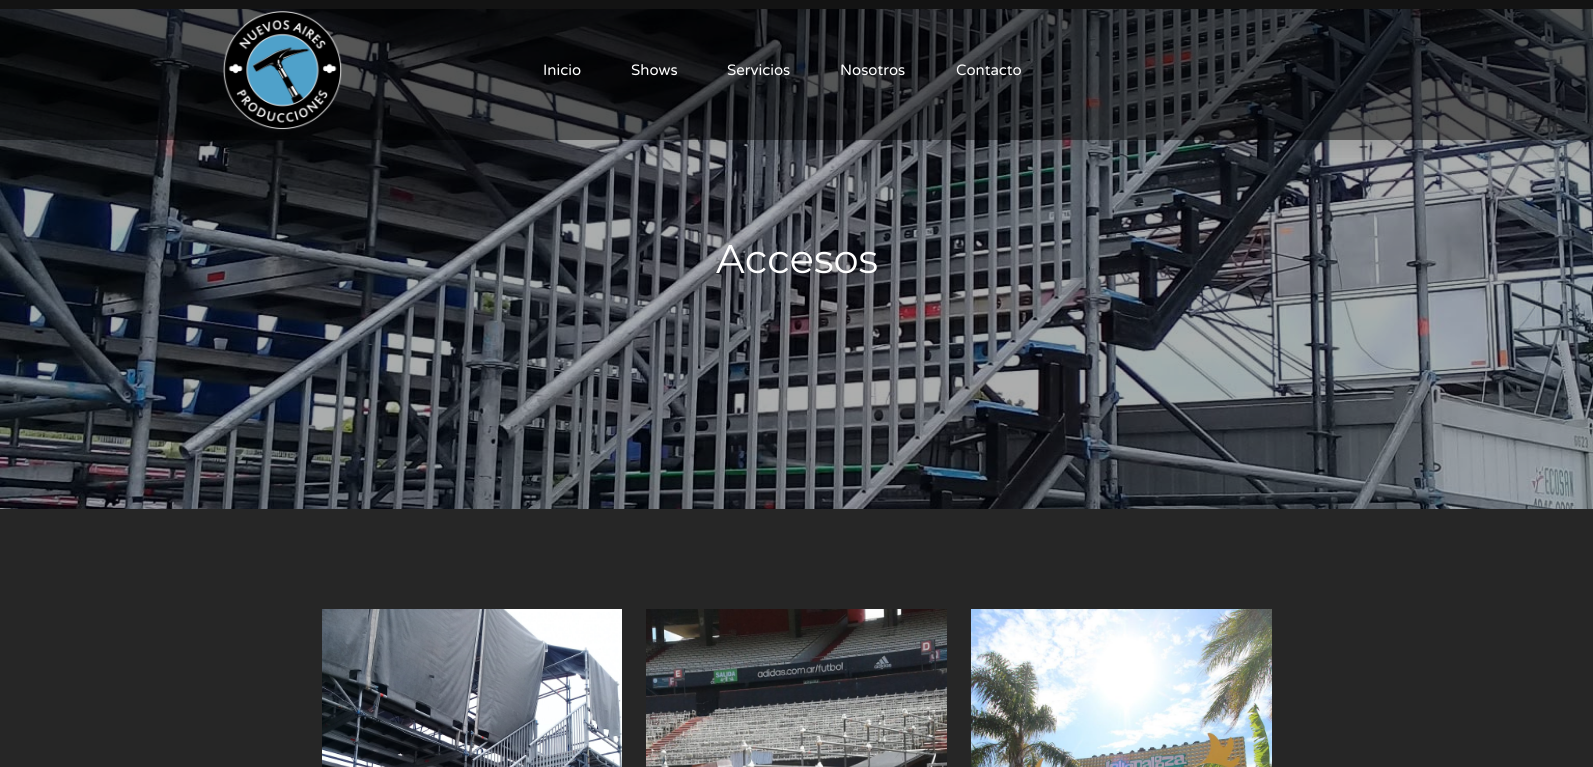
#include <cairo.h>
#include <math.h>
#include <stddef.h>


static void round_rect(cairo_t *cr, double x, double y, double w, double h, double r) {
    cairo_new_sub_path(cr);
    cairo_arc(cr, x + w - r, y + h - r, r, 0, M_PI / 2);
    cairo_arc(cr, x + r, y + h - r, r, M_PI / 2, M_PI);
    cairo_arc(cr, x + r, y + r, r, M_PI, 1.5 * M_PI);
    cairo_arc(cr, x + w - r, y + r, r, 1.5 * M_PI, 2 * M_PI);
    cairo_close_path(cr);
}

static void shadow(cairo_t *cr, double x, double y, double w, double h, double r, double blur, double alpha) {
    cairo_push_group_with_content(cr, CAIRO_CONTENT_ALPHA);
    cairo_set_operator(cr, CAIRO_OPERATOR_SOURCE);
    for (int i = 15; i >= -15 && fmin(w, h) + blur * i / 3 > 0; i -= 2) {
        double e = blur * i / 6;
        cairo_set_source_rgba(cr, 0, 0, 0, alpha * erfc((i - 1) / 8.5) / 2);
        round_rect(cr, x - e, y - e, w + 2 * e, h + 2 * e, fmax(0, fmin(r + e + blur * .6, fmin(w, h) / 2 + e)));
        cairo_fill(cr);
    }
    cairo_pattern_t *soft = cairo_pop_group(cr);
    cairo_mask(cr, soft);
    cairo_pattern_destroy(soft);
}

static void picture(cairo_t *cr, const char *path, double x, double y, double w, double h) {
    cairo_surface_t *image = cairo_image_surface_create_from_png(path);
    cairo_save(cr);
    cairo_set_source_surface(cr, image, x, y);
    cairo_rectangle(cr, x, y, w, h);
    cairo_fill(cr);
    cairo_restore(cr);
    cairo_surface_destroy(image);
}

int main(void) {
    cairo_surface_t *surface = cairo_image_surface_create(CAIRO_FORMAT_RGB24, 1593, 767);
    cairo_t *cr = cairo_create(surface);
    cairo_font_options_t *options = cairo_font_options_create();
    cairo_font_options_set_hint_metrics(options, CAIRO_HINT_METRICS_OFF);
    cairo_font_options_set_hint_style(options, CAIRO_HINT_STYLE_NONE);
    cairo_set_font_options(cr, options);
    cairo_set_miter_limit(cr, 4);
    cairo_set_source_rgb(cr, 0.149, 0.149, 0.149);
    cairo_paint(cr);
    picture(cr, "img2.png", 0, 9, 1593, 500);
    cairo_save(cr);
    cairo_rectangle(cr, 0, 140, 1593, 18);
    cairo_clip(cr);
    cairo_set_source_rgb(cr, 0, 0, 0);
    shadow(cr, 0, 10, 1593, 140, 0, 10, 0.1);
    cairo_restore(cr);
    cairo_set_source_rgba(cr, 0, 0, 0, 0.2);
    cairo_rectangle(cr, 0, 0, 1593, 140);
    cairo_fill(cr);
    cairo_set_source_rgba(cr, 0, 0, 0, 0.38);
    cairo_rectangle(cr, 0, 0, 1593, 140);
    cairo_fill(cr);
    picture(cr, "img1.png", 223, 11, 119, 119);
    cairo_select_font_face(cr, "Varela Round", CAIRO_FONT_SLANT_NORMAL, CAIRO_FONT_WEIGHT_NORMAL);
    cairo_set_font_size(cr, 15);
    cairo_set_source_rgb(cr, 1, 1, 1);
    cairo_move_to(cr, 543, 75);
    cairo_show_text(cr, "Inicio");
    cairo_move_to(cr, 631, 75);
    cairo_show_text(cr, "Shows");
    cairo_move_to(cr, 727, 75);
    cairo_show_text(cr, "Servicios");
    cairo_move_to(cr, 840, 75);
    cairo_show_text(cr, "Nosotros");
    cairo_move_to(cr, 956, 75);
    cairo_show_text(cr, "Contacto");
    cairo_select_font_face(cr, "Montserrat", CAIRO_FONT_SLANT_NORMAL, CAIRO_FONT_WEIGHT_NORMAL);
    cairo_set_font_size(cr, 40);
    cairo_move_to(cr, 716, 273);
    cairo_show_text(cr, "Accesos");
    picture(cr, "img3.png", 322, 609, 300, 158);
    picture(cr, "img4.png", 646, 609, 301, 158);
    picture(cr, "img5.png", 971, 609, 301, 158);
    cairo_surface_write_to_png(surface, "page.png");
    cairo_font_options_destroy(options);
    cairo_destroy(cr);
    cairo_surface_destroy(surface);
    return 0;
}
